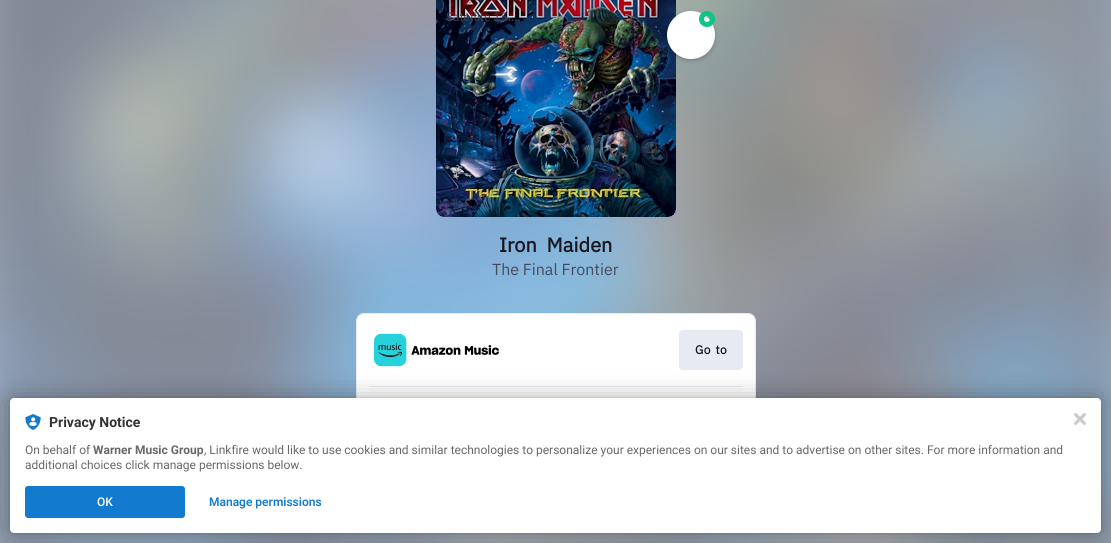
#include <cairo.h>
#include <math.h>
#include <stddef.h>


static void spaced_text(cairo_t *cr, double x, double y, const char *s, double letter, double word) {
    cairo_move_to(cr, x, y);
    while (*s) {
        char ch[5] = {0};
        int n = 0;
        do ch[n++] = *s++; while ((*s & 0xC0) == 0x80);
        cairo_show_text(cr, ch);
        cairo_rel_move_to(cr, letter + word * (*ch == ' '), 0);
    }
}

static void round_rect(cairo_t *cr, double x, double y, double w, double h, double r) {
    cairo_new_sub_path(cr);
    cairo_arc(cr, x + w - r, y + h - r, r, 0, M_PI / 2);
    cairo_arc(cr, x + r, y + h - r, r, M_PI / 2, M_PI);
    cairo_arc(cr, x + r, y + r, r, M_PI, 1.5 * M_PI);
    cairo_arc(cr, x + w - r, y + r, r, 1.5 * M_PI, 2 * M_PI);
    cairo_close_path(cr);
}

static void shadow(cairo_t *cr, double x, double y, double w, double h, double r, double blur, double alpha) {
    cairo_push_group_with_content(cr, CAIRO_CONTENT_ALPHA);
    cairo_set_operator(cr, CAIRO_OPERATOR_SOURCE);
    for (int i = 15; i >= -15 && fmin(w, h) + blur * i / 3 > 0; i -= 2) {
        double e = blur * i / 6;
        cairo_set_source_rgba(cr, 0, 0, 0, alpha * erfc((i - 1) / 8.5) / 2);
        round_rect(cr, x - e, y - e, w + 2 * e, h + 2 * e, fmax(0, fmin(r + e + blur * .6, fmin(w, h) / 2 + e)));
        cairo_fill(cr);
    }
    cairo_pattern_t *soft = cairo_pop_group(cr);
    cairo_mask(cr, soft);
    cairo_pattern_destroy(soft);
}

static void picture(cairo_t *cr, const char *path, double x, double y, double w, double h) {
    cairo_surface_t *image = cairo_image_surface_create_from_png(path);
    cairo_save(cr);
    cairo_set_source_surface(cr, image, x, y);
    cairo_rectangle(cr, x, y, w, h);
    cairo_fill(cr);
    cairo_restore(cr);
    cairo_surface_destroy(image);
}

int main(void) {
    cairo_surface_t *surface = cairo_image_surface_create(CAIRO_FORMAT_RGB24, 1111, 543);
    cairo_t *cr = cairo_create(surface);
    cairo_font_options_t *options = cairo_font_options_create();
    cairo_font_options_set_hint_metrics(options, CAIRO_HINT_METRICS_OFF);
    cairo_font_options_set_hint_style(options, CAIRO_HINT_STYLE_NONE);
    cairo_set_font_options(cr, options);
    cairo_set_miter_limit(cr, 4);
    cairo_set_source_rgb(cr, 1, 1, 1);
    cairo_paint(cr);
    picture(cr, "img1.png", 0, 0, 1111, 543);
    picture(cr, "img2.png", 436, 0, 240, 217);
    cairo_set_source_rgb(cr, 0, 0, 0);
    shadow(cr, 667, 13, 48, 48, 24, 2, 0.2);
    cairo_set_source_rgb(cr, 1, 1, 1);
    cairo_arc(cr, 691, 35, 24, 0, 2 * M_PI);
    cairo_fill(cr);
    cairo_arc(cr, 707, 19, 5.5, 0, 2 * M_PI);
    cairo_set_source_rgb(cr, 0.051, 0.773, 0.529);
    cairo_set_line_width(cr, 5);
    cairo_stroke(cr);
    cairo_select_font_face(cr, "IBM Plex Sans", CAIRO_FONT_SLANT_NORMAL, CAIRO_FONT_WEIGHT_NORMAL);
    cairo_set_font_size(cr, 12);
    cairo_set_source_rgb(cr, 0.263, 0.251, 0.322);
    cairo_move_to(cr, 446, 21);
    cairo_show_text(cr, "Satellite 15.…");
    cairo_select_font_face(cr, "IBM Plex Sans", CAIRO_FONT_SLANT_NORMAL, CAIRO_FONT_WEIGHT_BOLD);
    cairo_set_font_size(cr, 20);
    cairo_set_source_rgb(cr, 0.094, 0.09, 0.129);
    spaced_text(cr, 499, 252, "Iron Maiden", 0, 5);
    cairo_select_font_face(cr, "IBM Plex Sans", CAIRO_FONT_SLANT_NORMAL, CAIRO_FONT_WEIGHT_NORMAL);
    cairo_set_font_size(cr, 16);
    cairo_set_source_rgb(cr, 0.271, 0.294, 0.373);
    cairo_move_to(cr, 492, 275);
    cairo_show_text(cr, "The Final Frontier");
    round_rect(cr, 356.5, 313.5, 399, 146, 7.5);
    cairo_set_source_rgb(cr, 0.902, 0.918, 0.949);
    cairo_set_line_width(cr, 1);
    cairo_stroke(cr);
    cairo_set_source_rgb(cr, 1, 1, 1);
    round_rect(cr, 357, 314, 398, 145, 7);
    cairo_fill(cr);
    picture(cr, "img3.png", 374, 333, 125, 34);
    cairo_set_source_rgb(cr, 0.902, 0.918, 0.949);
    round_rect(cr, 679, 330, 64, 40, 4);
    cairo_fill(cr);
    cairo_select_font_face(cr, "IBM Plex Sans", CAIRO_FONT_SLANT_NORMAL, CAIRO_FONT_WEIGHT_BOLD);
    cairo_set_font_size(cr, 12);
    cairo_set_source_rgb(cr, 0.094, 0.09, 0.129);
    spaced_text(cr, 695, 354, "Go to", 0.5, 1);
    cairo_set_source_rgb(cr, 0.902, 0.918, 0.949);
    cairo_rectangle(cr, 369, 386, 374, 1);
    cairo_fill(cr);
    cairo_set_source_rgb(cr, 0, 0, 0);
    shadow(cr, 10, 398, 1091, 135, 4, 2, 0.12);
    shadow(cr, 10, 398, 1091, 135, 4, 12, 0.3);
    cairo_set_source_rgb(cr, 1, 1, 1);
    round_rect(cr, 10, 398, 1091, 135, 4);
    cairo_fill(cr);
    picture(cr, "img4.png", 25, 414, 16, 16);
    cairo_select_font_face(cr, "Roboto", CAIRO_FONT_SLANT_NORMAL, CAIRO_FONT_WEIGHT_BOLD);
    cairo_set_font_size(cr, 14);
    cairo_set_source_rgb(cr, 0.196, 0.196, 0.196);
    cairo_move_to(cr, 49, 427);
    cairo_show_text(cr, "Privacy Notice");
    cairo_select_font_face(cr, "Roboto", CAIRO_FONT_SLANT_NORMAL, CAIRO_FONT_WEIGHT_NORMAL);
    cairo_set_font_size(cr, 12);
    cairo_set_source_rgb(cr, 0.408, 0.408, 0.408);
    cairo_move_to(cr, 25, 454);
    cairo_show_text(cr, "On behalf of");
    cairo_select_font_face(cr, "Roboto", CAIRO_FONT_SLANT_NORMAL, CAIRO_FONT_WEIGHT_BOLD);
    cairo_move_to(cr, 93, 454);
    cairo_show_text(cr, "Warner Music Group");
    cairo_select_font_face(cr, "Roboto", CAIRO_FONT_SLANT_NORMAL, CAIRO_FONT_WEIGHT_NORMAL);
    cairo_move_to(cr, 204, 454);
    cairo_show_text(cr, ", Linkfire would like to use cookies and similar technologies to personalize your experiences on our sites and to advertise on other sites. For more information and");
    cairo_move_to(cr, 25, 469);
    cairo_show_text(cr, "additional choices click manage permissions below.");
    cairo_set_source_rgb(cr, 0.075, 0.482, 0.812);
    round_rect(cr, 25, 486, 160, 32, 3);
    cairo_fill(cr);
    cairo_select_font_face(cr, "Roboto Medium", CAIRO_FONT_SLANT_NORMAL, CAIRO_FONT_WEIGHT_NORMAL);
    cairo_set_source_rgb(cr, 1, 1, 1);
    cairo_move_to(cr, 97, 506);
    cairo_show_text(cr, "OK");
    cairo_select_font_face(cr, "Roboto SemiBold", CAIRO_FONT_SLANT_NORMAL, CAIRO_FONT_WEIGHT_NORMAL);
    cairo_set_source_rgb(cr, 0.075, 0.482, 0.812);
    cairo_move_to(cr, 209, 506);
    cairo_show_text(cr, "Manage permissions");
    picture(cr, "img5.png", 1074, 413, 12, 12);
    cairo_surface_write_to_png(surface, "page.png");
    cairo_font_options_destroy(options);
    cairo_destroy(cr);
    cairo_surface_destroy(surface);
    return 0;
}
